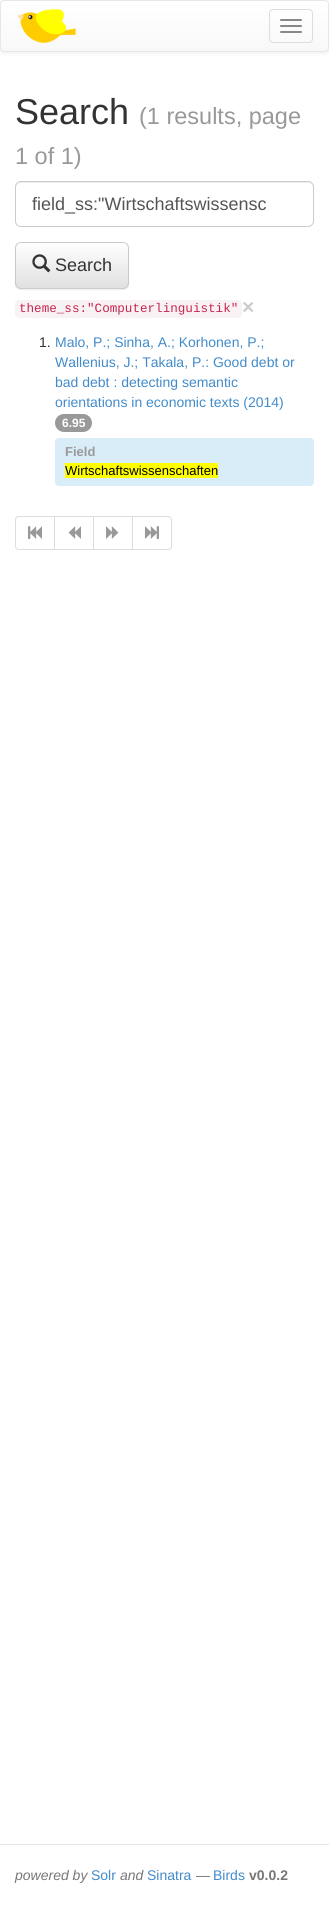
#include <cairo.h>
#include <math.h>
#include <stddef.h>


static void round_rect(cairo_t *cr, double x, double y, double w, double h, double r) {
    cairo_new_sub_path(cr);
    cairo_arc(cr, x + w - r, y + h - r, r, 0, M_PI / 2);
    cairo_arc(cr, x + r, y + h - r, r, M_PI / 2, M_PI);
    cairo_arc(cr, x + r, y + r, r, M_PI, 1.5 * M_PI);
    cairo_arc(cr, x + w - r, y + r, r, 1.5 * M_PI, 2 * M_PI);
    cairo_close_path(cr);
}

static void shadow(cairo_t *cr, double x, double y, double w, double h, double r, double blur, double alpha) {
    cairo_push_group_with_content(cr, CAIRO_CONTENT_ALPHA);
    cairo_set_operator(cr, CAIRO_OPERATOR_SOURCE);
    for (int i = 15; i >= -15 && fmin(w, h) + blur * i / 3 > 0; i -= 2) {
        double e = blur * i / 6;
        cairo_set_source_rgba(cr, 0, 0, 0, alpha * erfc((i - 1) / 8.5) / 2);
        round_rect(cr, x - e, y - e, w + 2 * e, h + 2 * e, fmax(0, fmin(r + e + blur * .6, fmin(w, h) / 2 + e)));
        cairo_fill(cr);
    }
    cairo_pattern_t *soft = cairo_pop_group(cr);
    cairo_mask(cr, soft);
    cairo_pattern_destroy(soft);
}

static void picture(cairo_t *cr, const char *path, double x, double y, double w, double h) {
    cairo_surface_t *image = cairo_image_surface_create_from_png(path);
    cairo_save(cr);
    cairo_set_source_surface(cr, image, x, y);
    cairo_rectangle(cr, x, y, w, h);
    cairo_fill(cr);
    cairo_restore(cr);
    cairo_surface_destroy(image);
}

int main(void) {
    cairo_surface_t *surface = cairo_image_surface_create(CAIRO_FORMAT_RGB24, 329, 1924);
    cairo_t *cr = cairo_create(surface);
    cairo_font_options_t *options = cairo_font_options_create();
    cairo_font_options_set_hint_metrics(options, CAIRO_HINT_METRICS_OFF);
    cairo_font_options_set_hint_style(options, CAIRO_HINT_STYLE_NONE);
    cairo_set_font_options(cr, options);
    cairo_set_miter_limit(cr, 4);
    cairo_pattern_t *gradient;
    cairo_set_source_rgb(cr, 1, 1, 1);
    cairo_paint(cr);
    cairo_set_source_rgb(cr, 0, 0, 0);
    shadow(cr, 0, 1, 329, 52, 4, 2.5, 0.07);
    cairo_save(cr);
    round_rect(cr, 0, 0, 329, 52, 4);
    cairo_clip(cr);
    gradient = cairo_pattern_create_linear(165, 1, 165, 51);
    cairo_pattern_add_color_stop_rgba(gradient, 0, 1, 1, 1, 1);
    cairo_pattern_add_color_stop_rgba(gradient, 1, 0.973, 0.973, 0.973, 1);
    cairo_set_source(cr, gradient);
    cairo_pattern_destroy(gradient);
    cairo_rectangle(cr, 0, 1, 329, 50);
    cairo_fill(cr);
    cairo_restore(cr);
    round_rect(cr, 0.5, 0.5, 328, 51, 3.5);
    cairo_set_source_rgb(cr, 0.906, 0.906, 0.906);
    cairo_set_line_width(cr, 1);
    cairo_stroke(cr);
    picture(cr, "img1.png", 17, 8, 60, 36);
    round_rect(cr, 269.5, 9.5, 43, 33, 3.5);
    cairo_set_source_rgb(cr, 0.867, 0.867, 0.867);
    cairo_stroke(cr);
    cairo_set_source_rgb(cr, 0.533, 0.533, 0.533);
    round_rect(cr, 280, 19, 22, 2, 1);
    cairo_fill(cr);
    round_rect(cr, 280, 25, 22, 2, 1);
    cairo_fill(cr);
    round_rect(cr, 280, 31, 22, 2, 1);
    cairo_fill(cr);
    cairo_select_font_face(cr, "Liberation Sans", CAIRO_FONT_SLANT_NORMAL, CAIRO_FONT_WEIGHT_NORMAL);
    cairo_set_font_size(cr, 36);
    cairo_set_source_rgb(cr, 0.2, 0.2, 0.2);
    cairo_move_to(cr, 15, 124);
    cairo_show_text(cr, "Search");
    cairo_set_font_size(cr, 23.5);
    cairo_set_source_rgb(cr, 0.6, 0.6, 0.6);
    cairo_move_to(cr, 139, 124);
    cairo_show_text(cr, "(1 results, page");
    cairo_move_to(cr, 15, 164);
    cairo_show_text(cr, "1 of 1)");
    cairo_set_source_rgb(cr, 0.925, 0.925, 0.925);
    cairo_new_path(cr);
    cairo_move_to(cr, 21, 183);
    cairo_line_to(cr, 308, 183);
    cairo_curve_to(cr, 311, 183, 313, 185, 313, 188);
    cairo_line_to(cr, 313, 187);
    cairo_curve_to(cr, 313, 184, 311, 182, 308, 182);
    cairo_line_to(cr, 21, 182);
    cairo_curve_to(cr, 18, 182, 16, 184, 16, 187);
    cairo_line_to(cr, 16, 188);
    cairo_curve_to(cr, 16, 185, 18, 183, 21, 183);
    cairo_close_path(cr);
    cairo_fill(cr);
    round_rect(cr, 15.5, 181.5, 298, 45, 5.5);
    cairo_set_source_rgb(cr, 0.8, 0.8, 0.8);
    cairo_stroke(cr);
    cairo_set_font_size(cr, 18);
    cairo_set_source_rgb(cr, 0.333, 0.333, 0.333);
    cairo_move_to(cr, 32, 210);
    cairo_show_text(cr, "field_ss:\"Wirtschaftswissensc");
    cairo_set_source_rgb(cr, 0, 0, 0);
    shadow(cr, 15, 243, 114, 47, 6, 0.5, 0.07);
    cairo_save(cr);
    round_rect(cr, 15, 242, 114, 47, 6);
    cairo_clip(cr);
    gradient = cairo_pattern_create_linear(72, 243, 72, 288);
    cairo_pattern_add_color_stop_rgba(gradient, 0, 1, 1, 1, 1);
    cairo_pattern_add_color_stop_rgba(gradient, 1, 0.878, 0.878, 0.878, 1);
    cairo_set_source(cr, gradient);
    cairo_pattern_destroy(gradient);
    cairo_rectangle(cr, 15, 243, 114, 45);
    cairo_fill(cr);
    cairo_restore(cr);
    round_rect(cr, 15.5, 242.5, 113, 46, 5.5);
    cairo_set_source_rgb(cr, 0.8, 0.8, 0.8);
    cairo_stroke(cr);
    picture(cr, "img2.png", 32, 254, 19, 19);
    cairo_set_source_rgb(cr, 0.2, 0.2, 0.2);
    cairo_move_to(cr, 55, 271);
    cairo_show_text(cr, "Search");
    cairo_set_source_rgb(cr, 0.976, 0.949, 0.957);
    round_rect(cr, 15, 300, 227, 18, 4);
    cairo_fill(cr);
    cairo_select_font_face(cr, "Liberation Mono", CAIRO_FONT_SLANT_NORMAL, CAIRO_FONT_WEIGHT_NORMAL);
    cairo_set_font_size(cr, 12.6);
    cairo_set_source_rgb(cr, 0.78, 0.145, 0.306);
    cairo_move_to(cr, 19, 312);
    cairo_show_text(cr, "theme_ss:\"Computerlinguistik\"");
    cairo_select_font_face(cr, "Liberation Sans", CAIRO_FONT_SLANT_NORMAL, CAIRO_FONT_WEIGHT_BOLD);
    cairo_set_font_size(cr, 21);
    cairo_set_source_rgb(cr, 0.8, 0.8, 0.8);
    cairo_move_to(cr, 242, 314);
    cairo_show_text(cr, "×");
    cairo_select_font_face(cr, "Liberation Sans", CAIRO_FONT_SLANT_NORMAL, CAIRO_FONT_WEIGHT_NORMAL);
    cairo_set_font_size(cr, 14);
    cairo_set_source_rgb(cr, 0.2, 0.2, 0.2);
    cairo_move_to(cr, 39, 347);
    cairo_show_text(cr, "1.");
    cairo_set_source_rgb(cr, 0.259, 0.545, 0.792);
    cairo_move_to(cr, 55, 347);
    cairo_show_text(cr, "Malo, P.; Sinha, A.; Korhonen, P.;");
    cairo_move_to(cr, 55, 367);
    cairo_show_text(cr, "Wallenius, J.; Takala, P.: Good debt or");
    cairo_move_to(cr, 55, 387);
    cairo_show_text(cr, "bad debt : detecting semantic");
    cairo_move_to(cr, 55, 407);
    cairo_show_text(cr, "orientations in economic texts (2014)");
    cairo_set_source_rgb(cr, 0.6, 0.6, 0.6);
    round_rect(cr, 55, 414, 37, 18, 9);
    cairo_fill(cr);
    cairo_select_font_face(cr, "Liberation Sans", CAIRO_FONT_SLANT_NORMAL, CAIRO_FONT_WEIGHT_BOLD);
    cairo_set_font_size(cr, 12);
    cairo_set_source_rgb(cr, 1, 1, 1);
    cairo_move_to(cr, 62, 427);
    cairo_show_text(cr, "6.95");
    cairo_set_source_rgb(cr, 0.851, 0.929, 0.969);
    round_rect(cr, 55, 438, 259, 48, 4);
    cairo_fill(cr);
    cairo_set_font_size(cr, 13);
    cairo_set_source_rgb(cr, 0.6, 0.6, 0.6);
    cairo_move_to(cr, 65, 456);
    cairo_show_text(cr, "Field");
    cairo_set_source_rgb(cr, 1, 1, 0);
    cairo_rectangle(cr, 65, 463, 153, 15);
    cairo_fill(cr);
    cairo_select_font_face(cr, "Liberation Sans", CAIRO_FONT_SLANT_NORMAL, CAIRO_FONT_WEIGHT_NORMAL);
    cairo_set_source_rgb(cr, 0, 0, 0);
    cairo_move_to(cr, 65, 475);
    cairo_show_text(cr, "Wirtschaftswissenschaften");
    cairo_new_path(cr);
    cairo_move_to(cr, 19, 516.5);
    cairo_line_to(cr, 54.5, 516.5);
    cairo_line_to(cr, 54.5, 549.5);
    cairo_line_to(cr, 19, 549.5);
    cairo_curve_to(cr, 17, 549.5, 15.5, 548, 15.5, 546);
    cairo_line_to(cr, 15.5, 520);
    cairo_curve_to(cr, 15.5, 518, 17, 516.5, 19, 516.5);
    cairo_close_path(cr);
    cairo_set_source_rgb(cr, 0.867, 0.867, 0.867);
    cairo_stroke(cr);
    picture(cr, "img3.png", 28, 526, 14, 13);
    cairo_rectangle(cr, 54.5, 516.5, 39, 33);
    cairo_stroke(cr);
    picture(cr, "img4.png", 68, 526, 13, 13);
    cairo_rectangle(cr, 93.5, 516.5, 39, 33);
    cairo_stroke(cr);
    picture(cr, "img5.png", 106, 526, 13, 13);
    cairo_set_source_rgb(cr, 1, 1, 1);
    cairo_new_path(cr);
    cairo_move_to(cr, 132.5, 516.5);
    cairo_line_to(cr, 168, 516.5);
    cairo_curve_to(cr, 170, 516.5, 171.5, 518, 171.5, 520);
    cairo_line_to(cr, 171.5, 546);
    cairo_curve_to(cr, 171.5, 548, 170, 549.5, 168, 549.5);
    cairo_line_to(cr, 132.5, 549.5);
    cairo_close_path(cr);
    cairo_fill_preserve(cr);
    cairo_set_source_rgb(cr, 0.867, 0.867, 0.867);
    cairo_stroke(cr);
    picture(cr, "img6.png", 145, 526, 14, 13);
    cairo_set_source_rgb(cr, 0.898, 0.898, 0.898);
    cairo_rectangle(cr, 0, 1844, 329, 1);
    cairo_fill(cr);
    cairo_select_font_face(cr, "Liberation Sans", CAIRO_FONT_SLANT_ITALIC, CAIRO_FONT_WEIGHT_NORMAL);
    cairo_set_font_size(cr, 14);
    cairo_set_source_rgb(cr, 0.467, 0.467, 0.467);
    cairo_move_to(cr, 15, 1880);
    cairo_show_text(cr, "powered by");
    cairo_select_font_face(cr, "Liberation Sans", CAIRO_FONT_SLANT_NORMAL, CAIRO_FONT_WEIGHT_NORMAL);
    cairo_set_source_rgb(cr, 0.259, 0.545, 0.792);
    cairo_move_to(cr, 91, 1880);
    cairo_show_text(cr, "Solr");
    cairo_select_font_face(cr, "Liberation Sans", CAIRO_FONT_SLANT_ITALIC, CAIRO_FONT_WEIGHT_NORMAL);
    cairo_set_source_rgb(cr, 0.467, 0.467, 0.467);
    cairo_move_to(cr, 120, 1880);
    cairo_show_text(cr, "and");
    cairo_select_font_face(cr, "Liberation Sans", CAIRO_FONT_SLANT_NORMAL, CAIRO_FONT_WEIGHT_NORMAL);
    cairo_set_source_rgb(cr, 0.259, 0.545, 0.792);
    cairo_move_to(cr, 147, 1880);
    cairo_show_text(cr, "Sinatra");
    cairo_set_source_rgb(cr, 0.467, 0.467, 0.467);
    cairo_move_to(cr, 196, 1880);
    cairo_show_text(cr, "—");
    cairo_set_source_rgb(cr, 0.259, 0.545, 0.792);
    cairo_move_to(cr, 213, 1880);
    cairo_show_text(cr, "Birds");
    cairo_select_font_face(cr, "Liberation Sans", CAIRO_FONT_SLANT_NORMAL, CAIRO_FONT_WEIGHT_BOLD);
    cairo_set_source_rgb(cr, 0.467, 0.467, 0.467);
    cairo_move_to(cr, 249, 1880);
    cairo_show_text(cr, "v0.0.2");
    cairo_surface_write_to_png(surface, "page.png");
    cairo_font_options_destroy(options);
    cairo_destroy(cr);
    cairo_surface_destroy(surface);
    return 0;
}
